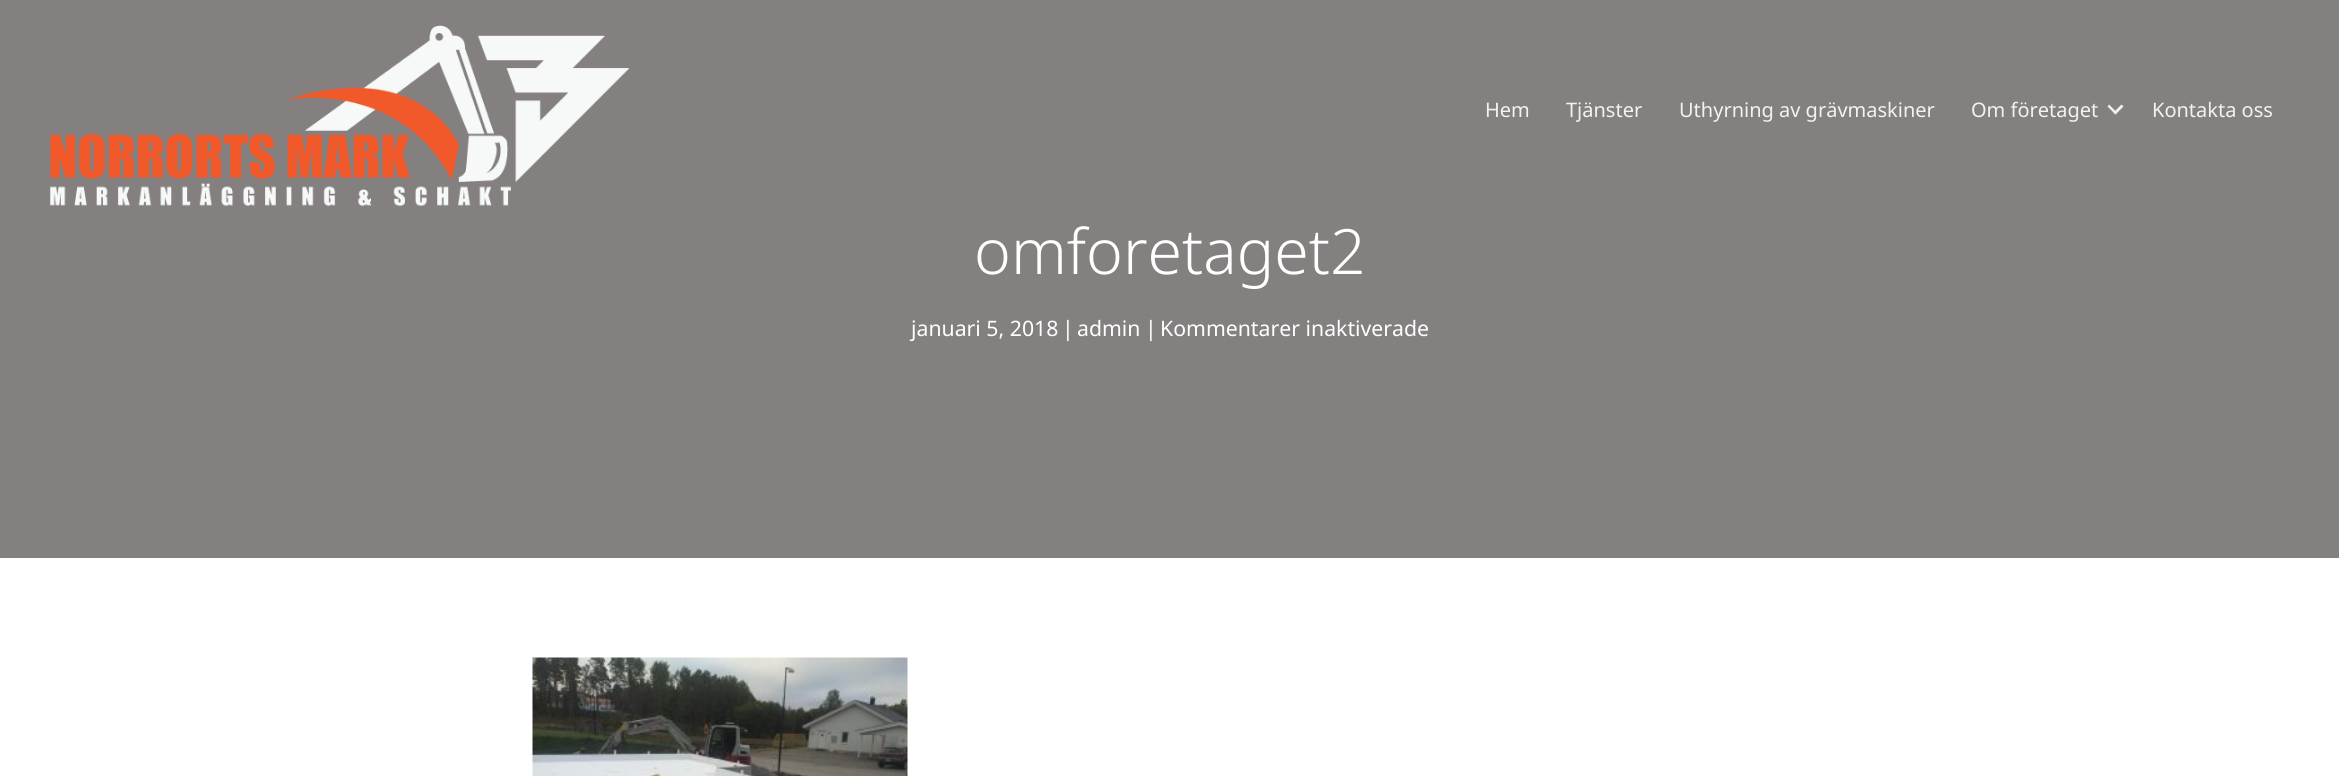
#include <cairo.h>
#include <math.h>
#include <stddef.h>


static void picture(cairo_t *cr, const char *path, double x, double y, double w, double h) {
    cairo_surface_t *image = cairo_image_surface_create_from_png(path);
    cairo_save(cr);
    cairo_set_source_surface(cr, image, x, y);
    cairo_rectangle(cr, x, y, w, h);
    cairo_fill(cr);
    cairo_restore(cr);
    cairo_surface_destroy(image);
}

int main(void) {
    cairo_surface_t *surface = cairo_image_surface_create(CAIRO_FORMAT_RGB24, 2339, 776);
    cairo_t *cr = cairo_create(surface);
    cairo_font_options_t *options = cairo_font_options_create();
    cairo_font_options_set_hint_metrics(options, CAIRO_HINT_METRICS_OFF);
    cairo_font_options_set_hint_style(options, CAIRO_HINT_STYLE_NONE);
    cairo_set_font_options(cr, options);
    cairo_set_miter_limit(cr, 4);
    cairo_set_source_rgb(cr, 1, 1, 1);
    cairo_paint(cr);
    cairo_set_source_rgb(cr, 0.522, 0.502, 0.502);
    cairo_rectangle(cr, 0, 0, 2339, 558);
    cairo_fill(cr);
    picture(cr, "img1.png", 50, 25, 580, 182);
    cairo_select_font_face(cr, "Noto Sans", CAIRO_FONT_SLANT_NORMAL, CAIRO_FONT_WEIGHT_NORMAL);
    cairo_set_font_size(cr, 20);
    cairo_set_source_rgb(cr, 0.949, 0.949, 0.949);
    cairo_move_to(cr, 1485, 117);
    cairo_show_text(cr, "Hem");
    cairo_move_to(cr, 1566, 117);
    cairo_show_text(cr, "Tjänster");
    cairo_move_to(cr, 1679, 117);
    cairo_show_text(cr, "Uthyrning av grävmaskiner");
    cairo_move_to(cr, 1971, 117);
    cairo_show_text(cr, "Om företaget");
    cairo_new_path(cr);
    cairo_move_to(cr, 2121.5, 104.5);
    cairo_line_to(cr, 2123.5, 106.5);
    cairo_line_to(cr, 2115.5, 114.5);
    cairo_line_to(cr, 2113.5, 112.5);
    cairo_close_path(cr);
    cairo_fill(cr);
    cairo_new_path(cr);
    cairo_move_to(cr, 2109, 104.5);
    cairo_line_to(cr, 2117, 112.5);
    cairo_line_to(cr, 2115.5, 114.5);
    cairo_line_to(cr, 2107.5, 106.5);
    cairo_close_path(cr);
    cairo_fill(cr);
    cairo_move_to(cr, 2152, 117);
    cairo_show_text(cr, "Kontakta oss");
    cairo_select_font_face(cr, "Noto Sans Light", CAIRO_FONT_SLANT_NORMAL, CAIRO_FONT_WEIGHT_NORMAL);
    cairo_set_font_size(cr, 62.5);
    cairo_set_source_rgb(cr, 1, 1, 1);
    cairo_move_to(cr, 974, 274);
    cairo_show_text(cr, "omforetaget2");
    cairo_select_font_face(cr, "Noto Sans", CAIRO_FONT_SLANT_NORMAL, CAIRO_FONT_WEIGHT_NORMAL);
    cairo_set_font_size(cr, 21.25);
    cairo_move_to(cr, 911, 336);
    cairo_show_text(cr, "januari 5, 2018");
    cairo_move_to(cr, 1062, 336);
    cairo_show_text(cr, "|");
    cairo_move_to(cr, 1077, 336);
    cairo_show_text(cr, "admin");
    cairo_move_to(cr, 1145, 336);
    cairo_show_text(cr, "|");
    cairo_move_to(cr, 1160, 336);
    cairo_show_text(cr, "Kommentarer inaktiverade");
    picture(cr, "img2.png", 532, 657, 376, 119);
    cairo_surface_write_to_png(surface, "page.png");
    cairo_font_options_destroy(options);
    cairo_destroy(cr);
    cairo_surface_destroy(surface);
    return 0;
}
